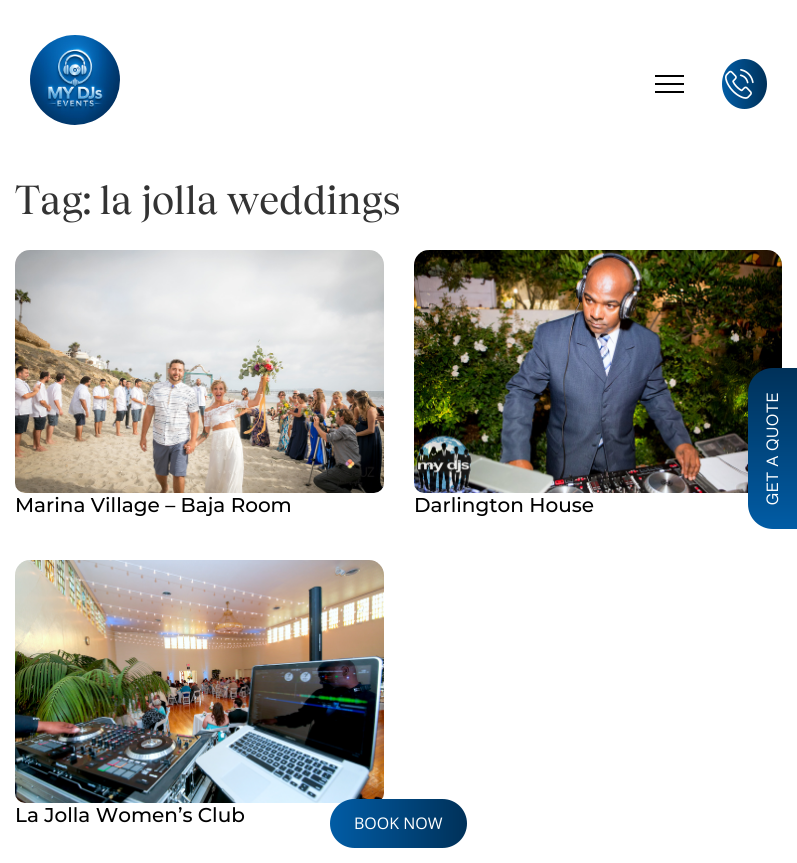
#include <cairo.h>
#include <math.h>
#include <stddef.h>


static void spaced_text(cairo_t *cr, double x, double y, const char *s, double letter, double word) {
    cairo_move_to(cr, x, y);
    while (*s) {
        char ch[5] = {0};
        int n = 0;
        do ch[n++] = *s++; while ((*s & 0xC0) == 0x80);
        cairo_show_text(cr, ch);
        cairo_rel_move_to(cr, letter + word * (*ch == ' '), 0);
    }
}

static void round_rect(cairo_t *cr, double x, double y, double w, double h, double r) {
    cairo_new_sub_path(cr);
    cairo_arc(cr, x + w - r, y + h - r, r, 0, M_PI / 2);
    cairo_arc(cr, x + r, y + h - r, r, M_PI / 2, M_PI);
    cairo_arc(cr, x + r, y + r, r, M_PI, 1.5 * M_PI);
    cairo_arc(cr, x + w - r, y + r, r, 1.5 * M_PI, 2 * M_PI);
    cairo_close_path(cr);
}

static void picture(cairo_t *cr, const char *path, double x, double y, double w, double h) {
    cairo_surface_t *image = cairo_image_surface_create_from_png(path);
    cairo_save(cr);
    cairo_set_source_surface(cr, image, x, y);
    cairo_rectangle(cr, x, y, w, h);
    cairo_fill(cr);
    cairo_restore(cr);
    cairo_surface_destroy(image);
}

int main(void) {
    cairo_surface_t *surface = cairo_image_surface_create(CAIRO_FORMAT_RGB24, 797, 863);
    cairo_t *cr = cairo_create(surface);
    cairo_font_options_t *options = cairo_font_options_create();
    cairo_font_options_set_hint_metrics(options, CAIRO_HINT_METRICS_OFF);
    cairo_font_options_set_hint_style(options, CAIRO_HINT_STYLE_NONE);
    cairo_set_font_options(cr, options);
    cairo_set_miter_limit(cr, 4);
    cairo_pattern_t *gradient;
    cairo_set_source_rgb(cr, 1, 1, 1);
    cairo_paint(cr);
    picture(cr, "img1.png", 30, 35, 90, 90);
    cairo_set_source_rgb(cr, 0, 0, 0);
    cairo_rectangle(cr, 655, 75, 29, 2);
    cairo_fill(cr);
    cairo_rectangle(cr, 655, 83, 29, 2);
    cairo_fill(cr);
    cairo_rectangle(cr, 655, 91, 29, 2);
    cairo_fill(cr);
    gradient = cairo_pattern_create_linear(722, 84, 767, 84);
    cairo_pattern_add_color_stop_rgba(gradient, 0, 0.004, 0.361, 0.647, 1);
    cairo_pattern_add_color_stop_rgba(gradient, 1, 0, 0.192, 0.349, 1);
    cairo_set_source(cr, gradient);
    cairo_pattern_destroy(gradient);
    cairo_new_path(cr);
    cairo_move_to(cr, 744.5, 59);
    cairo_curve_to(cr, 757, 59, 767, 70, 767, 84);
    cairo_curve_to(cr, 767, 98, 757, 109, 744.5, 109);
    cairo_curve_to(cr, 732, 109, 722, 98, 722, 84);
    cairo_curve_to(cr, 722, 70, 732, 59, 744.5, 59);
    cairo_close_path(cr);
    cairo_fill(cr);
    picture(cr, "img2.png", 725, 69, 29, 30);
    cairo_select_font_face(cr, "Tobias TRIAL", CAIRO_FONT_SLANT_NORMAL, CAIRO_FONT_WEIGHT_NORMAL);
    cairo_set_font_size(cr, 40);
    cairo_set_source_rgb(cr, 0.2, 0.2, 0.2);
    cairo_move_to(cr, 15, 214);
    cairo_show_text(cr, "Tag: la jolla weddings");
    picture(cr, "img3.png", 15, 250, 369, 243);
    cairo_select_font_face(cr, "Montserrat Medium", CAIRO_FONT_SLANT_NORMAL, CAIRO_FONT_WEIGHT_NORMAL);
    cairo_set_font_size(cr, 20);
    cairo_set_source_rgb(cr, 0, 0, 0);
    cairo_move_to(cr, 15, 512);
    cairo_show_text(cr, "Marina Village – Baja Room");
    picture(cr, "img4.png", 414, 250, 368, 243);
    cairo_move_to(cr, 414, 512);
    cairo_show_text(cr, "Darlington House");
    picture(cr, "img5.png", 15, 560, 369, 243);
    cairo_move_to(cr, 15, 822);
    cairo_show_text(cr, "La Jolla Women’s Club");
    gradient = cairo_pattern_create_linear(772, 529, 772, 368);
    cairo_pattern_add_color_stop_rgba(gradient, 0, 0.004, 0.361, 0.647, 1);
    cairo_pattern_add_color_stop_rgba(gradient, 1, 0, 0.192, 0.349, 1);
    cairo_set_source(cr, gradient);
    cairo_pattern_destroy(gradient);
    cairo_new_path(cr);
    cairo_move_to(cr, 748, 504);
    cairo_line_to(cr, 748, 393);
    cairo_curve_to(cr, 748, 379, 759, 368, 773, 368);
    cairo_line_to(cr, 797, 368);
    cairo_line_to(cr, 797, 529);
    cairo_line_to(cr, 773, 529);
    cairo_curve_to(cr, 759, 529, 748, 518, 748, 504);
    cairo_close_path(cr);
    cairo_fill(cr);
    cairo_select_font_face(cr, "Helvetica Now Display", CAIRO_FONT_SLANT_NORMAL, CAIRO_FONT_WEIGHT_NORMAL);
    cairo_set_font_size(cr, 16);
    cairo_set_source_rgb(cr, 1, 1, 1);
    cairo_save(cr);
    cairo_translate(cr, 778, 505);
    cairo_rotate(cr, -90 * M_PI / 180);
    spaced_text(cr, 0, 0, "GET A QUOTE", 1, 0);
    cairo_restore(cr);
    gradient = cairo_pattern_create_linear(330, 824, 467, 824);
    cairo_pattern_add_color_stop_rgba(gradient, 0, 0.004, 0.361, 0.647, 1);
    cairo_pattern_add_color_stop_rgba(gradient, 1, 0, 0.192, 0.349, 1);
    cairo_set_source(cr, gradient);
    cairo_pattern_destroy(gradient);
    round_rect(cr, 330, 799, 137, 49, 24.5);
    cairo_fill(cr);
    cairo_select_font_face(cr, "Open Sans", CAIRO_FONT_SLANT_NORMAL, CAIRO_FONT_WEIGHT_NORMAL);
    cairo_set_source_rgb(cr, 1, 1, 1);
    cairo_move_to(cr, 354, 829);
    cairo_show_text(cr, "BOOK NOW");
    cairo_surface_write_to_png(surface, "page.png");
    cairo_font_options_destroy(options);
    cairo_destroy(cr);
    cairo_surface_destroy(surface);
    return 0;
}
